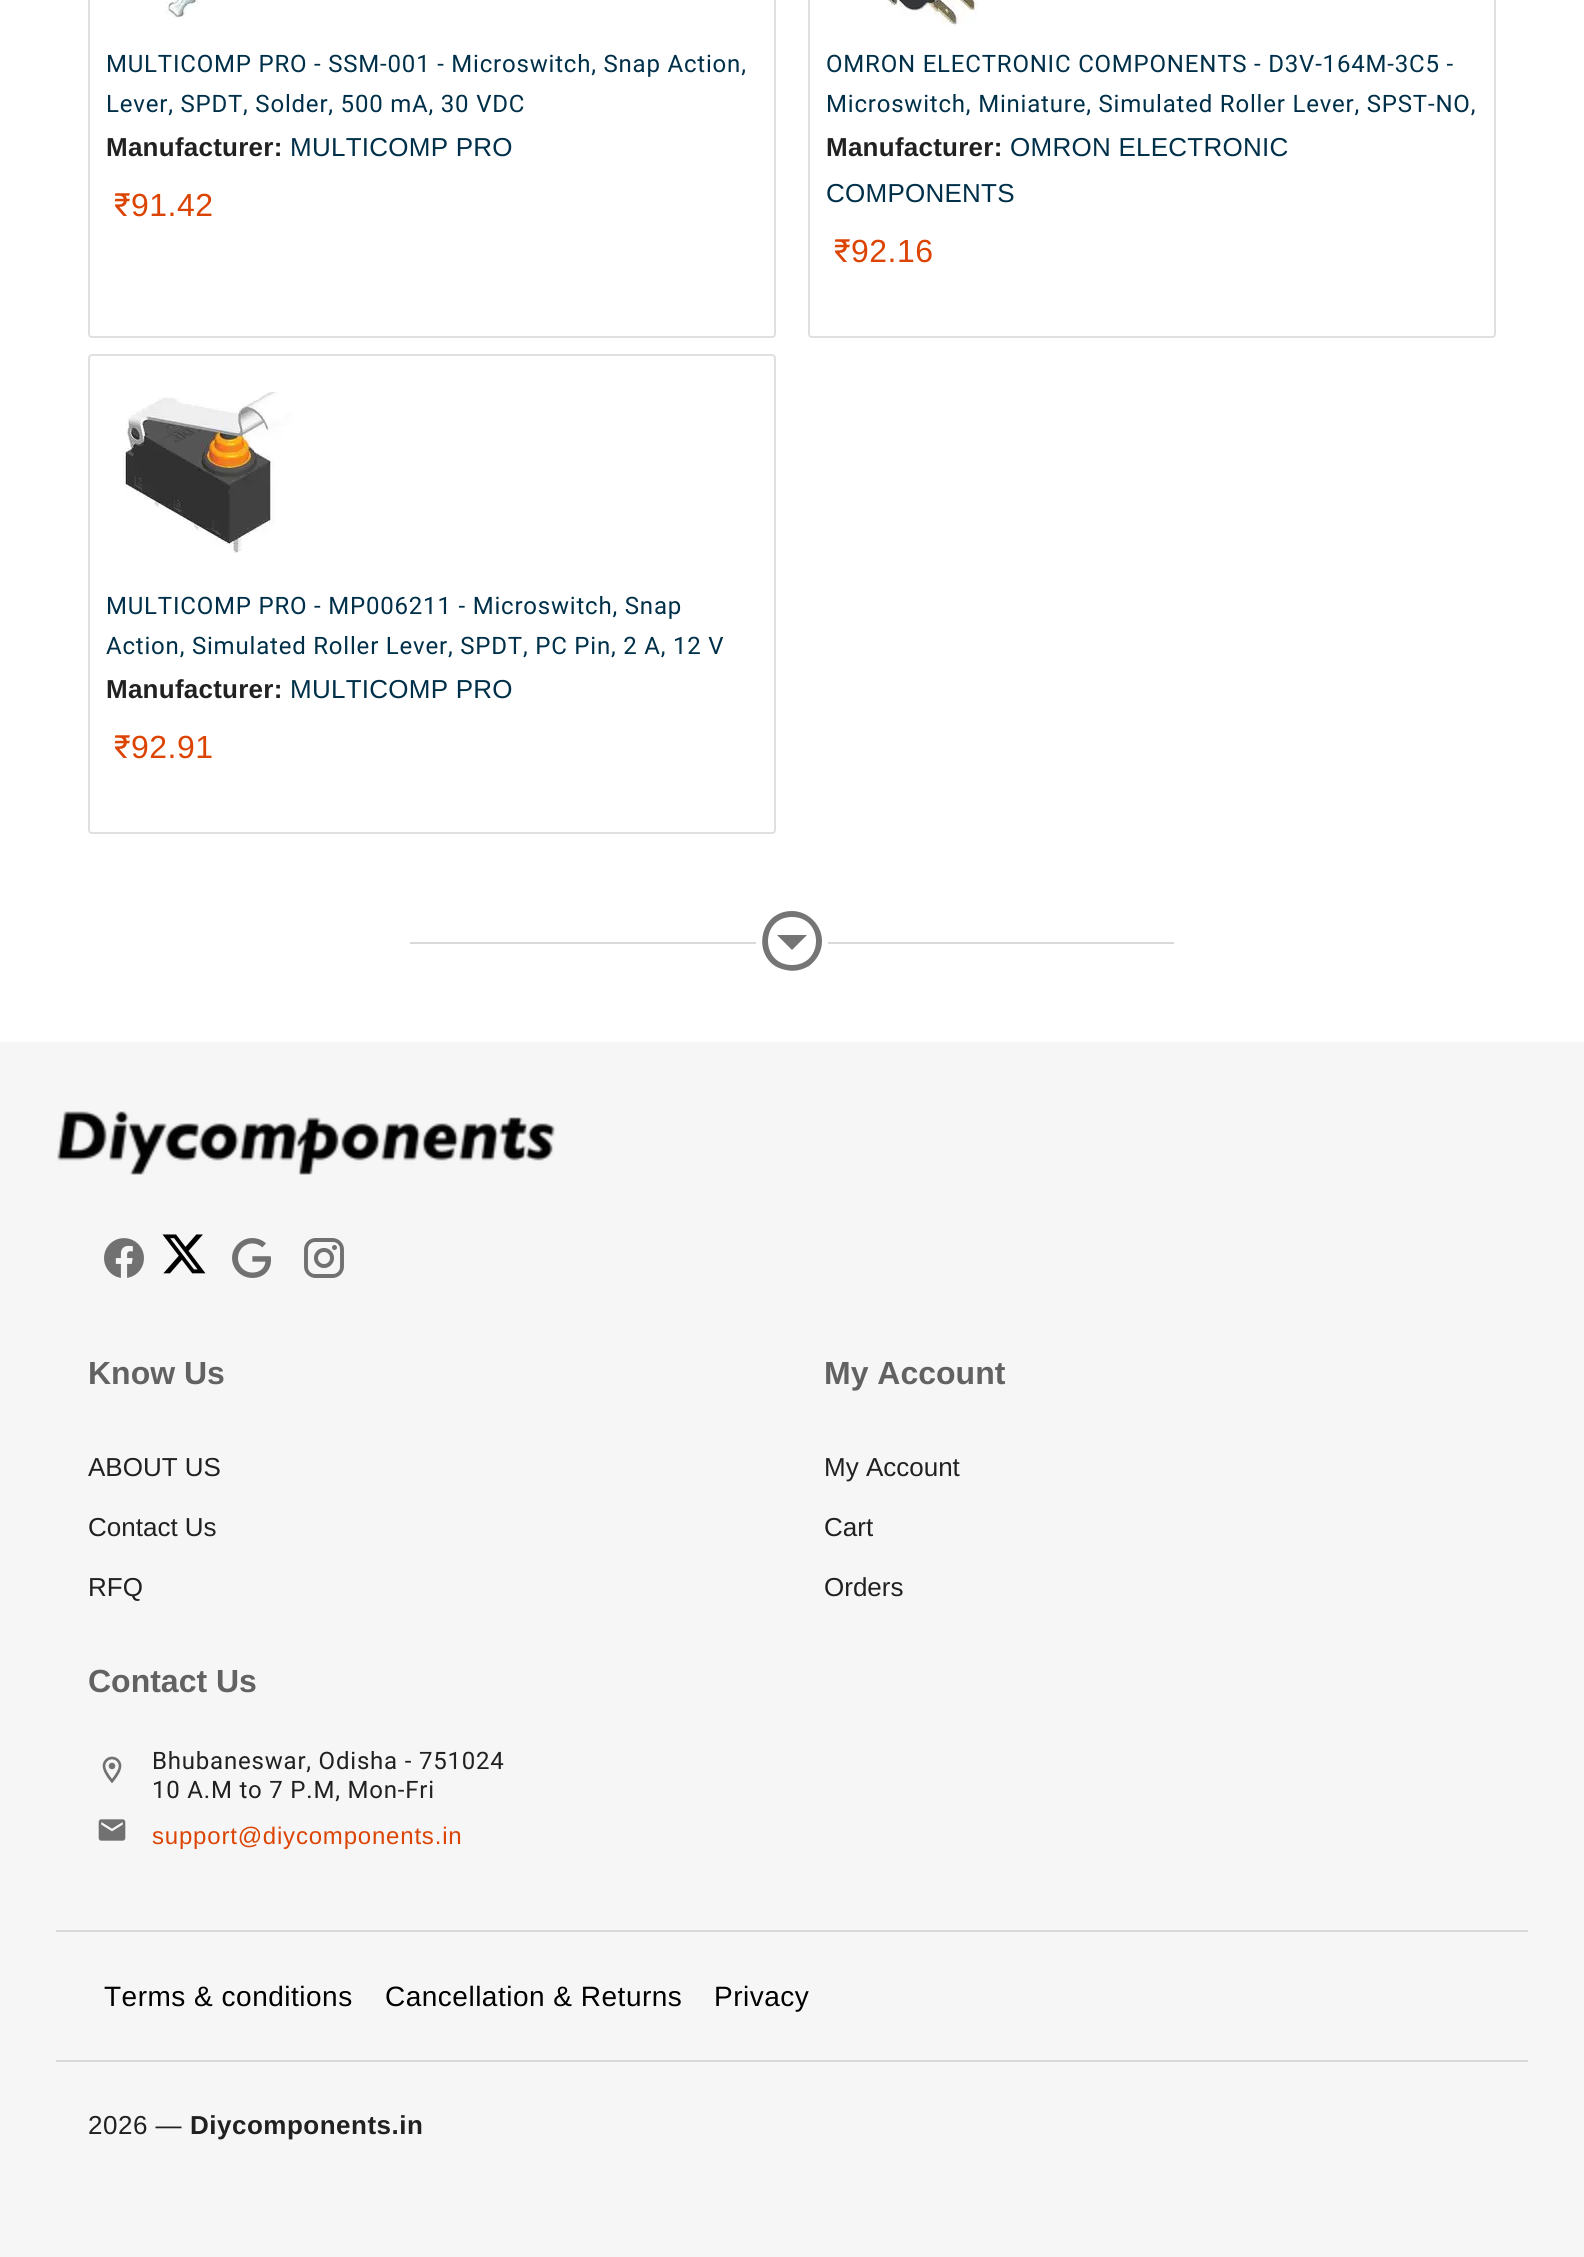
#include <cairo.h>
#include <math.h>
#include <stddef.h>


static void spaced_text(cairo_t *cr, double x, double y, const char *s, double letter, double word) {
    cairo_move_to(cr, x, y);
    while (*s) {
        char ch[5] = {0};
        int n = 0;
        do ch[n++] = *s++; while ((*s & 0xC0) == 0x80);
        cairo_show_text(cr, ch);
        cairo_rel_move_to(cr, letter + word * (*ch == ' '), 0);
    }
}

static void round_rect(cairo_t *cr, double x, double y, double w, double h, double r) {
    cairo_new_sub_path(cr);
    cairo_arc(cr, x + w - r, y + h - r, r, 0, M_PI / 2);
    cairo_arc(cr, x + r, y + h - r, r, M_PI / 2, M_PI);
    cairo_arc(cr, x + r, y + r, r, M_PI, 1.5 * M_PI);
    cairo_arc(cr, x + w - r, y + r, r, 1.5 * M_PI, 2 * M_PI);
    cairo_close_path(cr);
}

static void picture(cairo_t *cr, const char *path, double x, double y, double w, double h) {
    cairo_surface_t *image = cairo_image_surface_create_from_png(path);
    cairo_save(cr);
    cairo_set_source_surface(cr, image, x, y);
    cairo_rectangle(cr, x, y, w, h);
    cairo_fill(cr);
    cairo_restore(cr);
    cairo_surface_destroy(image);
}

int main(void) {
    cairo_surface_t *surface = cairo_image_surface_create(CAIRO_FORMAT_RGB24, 1584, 2257);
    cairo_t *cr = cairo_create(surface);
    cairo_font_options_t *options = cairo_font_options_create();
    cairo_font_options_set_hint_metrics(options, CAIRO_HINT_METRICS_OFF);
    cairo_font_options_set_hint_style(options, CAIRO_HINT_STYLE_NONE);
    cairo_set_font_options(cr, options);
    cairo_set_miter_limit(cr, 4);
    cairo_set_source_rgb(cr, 1, 1, 1);
    cairo_paint(cr);
    round_rect(cr, 89, -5, 686, 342, 3);
    cairo_set_source_rgb(cr, 0.878, 0.878, 0.878);
    cairo_stroke(cr);
    picture(cr, "img1.png", 166, 0, 33, 18);
    cairo_select_font_face(cr, "Roboto", CAIRO_FONT_SLANT_NORMAL, CAIRO_FONT_WEIGHT_NORMAL);
    cairo_set_font_size(cr, 24);
    cairo_set_source_rgb(cr, 0, 0.188, 0.286);
    spaced_text(cr, 106, 72, "MULTICOMP PRO - SSM-001 - Microswitch, Snap Action,", 0.8, 0);
    spaced_text(cr, 106, 112, "Lever, SPDT, Solder, 500 mA, 30 VDC", 0.8, 0);
    cairo_select_font_face(cr, "Liberation Sans", CAIRO_FONT_SLANT_NORMAL, CAIRO_FONT_WEIGHT_BOLD);
    cairo_set_font_size(cr, 26);
    cairo_set_source_rgb(cr, 0.129, 0.129, 0.129);
    spaced_text(cr, 106, 156, "Manufacturer:", 0.25, 0);
    cairo_select_font_face(cr, "Liberation Sans", CAIRO_FONT_SLANT_NORMAL, CAIRO_FONT_WEIGHT_NORMAL);
    cairo_set_source_rgb(cr, 0, 0.188, 0.286);
    spaced_text(cr, 290, 156, "MULTICOMP PRO", 0.25, 0);
    cairo_select_font_face(cr, "Roboto", CAIRO_FONT_SLANT_NORMAL, CAIRO_FONT_WEIGHT_NORMAL);
    cairo_set_font_size(cr, 32);
    cairo_set_source_rgb(cr, 0.863, 0.267, 0.016);
    spaced_text(cr, 114, 216, "₹", 0.5, 0);
    cairo_select_font_face(cr, "Liberation Sans", CAIRO_FONT_SLANT_NORMAL, CAIRO_FONT_WEIGHT_NORMAL);
    spaced_text(cr, 131, 216, "91.42", 0.5, 0);
    round_rect(cr, 809, -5, 686, 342, 3);
    cairo_set_source_rgb(cr, 0.878, 0.878, 0.878);
    cairo_stroke(cr);
    picture(cr, "img2.png", 886, 0, 92, 26);
    cairo_select_font_face(cr, "Roboto", CAIRO_FONT_SLANT_NORMAL, CAIRO_FONT_WEIGHT_NORMAL);
    cairo_set_font_size(cr, 24);
    cairo_set_source_rgb(cr, 0, 0.188, 0.286);
    spaced_text(cr, 826, 72, "OMRON ELECTRONIC COMPONENTS - D3V-164M-3C5 -", 0.8, 0);
    spaced_text(cr, 826, 112, "Microswitch, Miniature, Simulated Roller Lever, SPST-NO,", 0.8, 0);
    cairo_select_font_face(cr, "Liberation Sans", CAIRO_FONT_SLANT_NORMAL, CAIRO_FONT_WEIGHT_BOLD);
    cairo_set_font_size(cr, 26);
    cairo_set_source_rgb(cr, 0.129, 0.129, 0.129);
    spaced_text(cr, 826, 156, "Manufacturer:", 0.25, 0);
    cairo_select_font_face(cr, "Liberation Sans", CAIRO_FONT_SLANT_NORMAL, CAIRO_FONT_WEIGHT_NORMAL);
    cairo_set_source_rgb(cr, 0, 0.188, 0.286);
    spaced_text(cr, 1010, 156, "OMRON ELECTRONIC", 0.25, 0);
    spaced_text(cr, 826, 202, "COMPONENTS", 0.25, 0);
    cairo_select_font_face(cr, "Roboto", CAIRO_FONT_SLANT_NORMAL, CAIRO_FONT_WEIGHT_NORMAL);
    cairo_set_font_size(cr, 32);
    cairo_set_source_rgb(cr, 0.863, 0.267, 0.016);
    spaced_text(cr, 834, 262, "₹", 0.5, 0);
    cairo_select_font_face(cr, "Liberation Sans", CAIRO_FONT_SLANT_NORMAL, CAIRO_FONT_WEIGHT_NORMAL);
    spaced_text(cr, 851, 262, "92.16", 0.5, 0);
    round_rect(cr, 89, 355, 686, 478, 3);
    cairo_set_source_rgb(cr, 0.878, 0.878, 0.878);
    cairo_stroke(cr);
    picture(cr, "img3.png", 122, 392, 170, 161);
    cairo_select_font_face(cr, "Roboto", CAIRO_FONT_SLANT_NORMAL, CAIRO_FONT_WEIGHT_NORMAL);
    cairo_set_font_size(cr, 24);
    cairo_set_source_rgb(cr, 0, 0.188, 0.286);
    spaced_text(cr, 106, 614, "MULTICOMP PRO - MP006211 - Microswitch, Snap", 0.8, 0);
    spaced_text(cr, 106, 654, "Action, Simulated Roller Lever, SPDT, PC Pin, 2 A, 12 V", 0.8, 0);
    cairo_select_font_face(cr, "Liberation Sans", CAIRO_FONT_SLANT_NORMAL, CAIRO_FONT_WEIGHT_BOLD);
    cairo_set_font_size(cr, 26);
    cairo_set_source_rgb(cr, 0.129, 0.129, 0.129);
    spaced_text(cr, 106, 698, "Manufacturer:", 0.25, 0);
    cairo_select_font_face(cr, "Liberation Sans", CAIRO_FONT_SLANT_NORMAL, CAIRO_FONT_WEIGHT_NORMAL);
    cairo_set_source_rgb(cr, 0, 0.188, 0.286);
    spaced_text(cr, 290, 698, "MULTICOMP PRO", 0.25, 0);
    cairo_select_font_face(cr, "Roboto", CAIRO_FONT_SLANT_NORMAL, CAIRO_FONT_WEIGHT_NORMAL);
    cairo_set_font_size(cr, 32);
    cairo_set_source_rgb(cr, 0.863, 0.267, 0.016);
    spaced_text(cr, 114, 758, "₹", 0.5, 0);
    cairo_select_font_face(cr, "Liberation Sans", CAIRO_FONT_SLANT_NORMAL, CAIRO_FONT_WEIGHT_NORMAL);
    spaced_text(cr, 131, 758, "92.91", 0.5, 0);
    cairo_set_source_rgb(cr, 0.855, 0.847, 0.847);
    cairo_rectangle(cr, 410, 942, 346, 2);
    cairo_fill(cr);
    cairo_set_source_rgb(cr, 0.459, 0.459, 0.459);
    cairo_new_path(cr);
    cairo_move_to(cr, 792, 911);
    cairo_curve_to(cr, 756, 911, 751, 964, 786, 970);
    cairo_curve_to(cr, 794, 972, 802, 970, 809, 966);
    cairo_curve_to(cr, 817, 960, 822, 951, 822, 941);
    cairo_curve_to(cr, 822, 925, 808, 911, 792, 911);
    cairo_close_path(cr);
    cairo_move_to(cr, 792, 917);
    cairo_curve_to(cr, 824, 917, 824, 965, 792, 965);
    cairo_curve_to(cr, 760, 965, 760, 917, 792, 917);
    cairo_close_path(cr);
    cairo_move_to(cr, 777, 935);
    cairo_line_to(cr, 792, 950);
    cairo_line_to(cr, 807, 935);
    cairo_close_path(cr);
    cairo_fill(cr);
    cairo_set_source_rgb(cr, 0.855, 0.847, 0.847);
    cairo_rectangle(cr, 828, 942, 346, 2);
    cairo_fill(cr);
    cairo_set_source_rgb(cr, 0.961, 0.961, 0.961);
    cairo_rectangle(cr, 0, 1042, 1584, 1215);
    cairo_fill(cr);
    picture(cr, "img4.png", 57, 1111, 498, 64);
    picture(cr, "img5.png", 104, 1238, 40, 40);
    picture(cr, "img6.png", 162, 1234, 44, 40);
    picture(cr, "img7.png", 232, 1238, 39, 40);
    picture(cr, "img8.png", 304, 1238, 40, 40);
    cairo_select_font_face(cr, "Liberation Sans", CAIRO_FONT_SLANT_NORMAL, CAIRO_FONT_WEIGHT_BOLD);
    cairo_set_source_rgb(cr, 0.384, 0.384, 0.384);
    cairo_move_to(cr, 88, 1384);
    cairo_show_text(cr, "Know Us");
    cairo_select_font_face(cr, "Liberation Sans", CAIRO_FONT_SLANT_NORMAL, CAIRO_FONT_WEIGHT_NORMAL);
    cairo_set_font_size(cr, 26);
    cairo_set_source_rgb(cr, 0.129, 0.129, 0.129);
    cairo_move_to(cr, 88, 1476);
    cairo_show_text(cr, "ABOUT US");
    cairo_move_to(cr, 88, 1536);
    cairo_show_text(cr, "Contact Us");
    cairo_move_to(cr, 88, 1596);
    cairo_show_text(cr, "RFQ");
    cairo_select_font_face(cr, "Liberation Sans", CAIRO_FONT_SLANT_NORMAL, CAIRO_FONT_WEIGHT_BOLD);
    cairo_set_font_size(cr, 32);
    cairo_set_source_rgb(cr, 0.384, 0.384, 0.384);
    cairo_move_to(cr, 824, 1384);
    cairo_show_text(cr, "My Account");
    cairo_select_font_face(cr, "Liberation Sans", CAIRO_FONT_SLANT_NORMAL, CAIRO_FONT_WEIGHT_NORMAL);
    cairo_set_font_size(cr, 26);
    cairo_set_source_rgb(cr, 0.129, 0.129, 0.129);
    cairo_move_to(cr, 824, 1476);
    cairo_show_text(cr, "My Account");
    cairo_move_to(cr, 824, 1536);
    cairo_show_text(cr, "Cart");
    cairo_move_to(cr, 824, 1596);
    cairo_show_text(cr, "Orders");
    cairo_select_font_face(cr, "Liberation Sans", CAIRO_FONT_SLANT_NORMAL, CAIRO_FONT_WEIGHT_BOLD);
    cairo_set_font_size(cr, 32);
    cairo_set_source_rgb(cr, 0.384, 0.384, 0.384);
    cairo_move_to(cr, 88, 1692);
    cairo_show_text(cr, "Contact Us");
    picture(cr, "img9.png", 102, 1756, 20, 28);
    cairo_select_font_face(cr, "Roboto", CAIRO_FONT_SLANT_NORMAL, CAIRO_FONT_WEIGHT_NORMAL);
    cairo_set_font_size(cr, 24);
    cairo_set_source_rgb(cr, 0.129, 0.129, 0.129);
    spaced_text(cr, 152, 1769, "Bhubaneswar, Odisha - 751024", 0.8, 0);
    spaced_text(cr, 152, 1798, "10 A.M to 7 P.M, Mon-Fri", 0.8, 0);
    picture(cr, "img10.png", 98, 1819, 28, 22);
    cairo_select_font_face(cr, "Liberation Sans", CAIRO_FONT_SLANT_NORMAL, CAIRO_FONT_WEIGHT_NORMAL);
    cairo_set_source_rgb(cr, 0.863, 0.267, 0.016);
    spaced_text(cr, 152, 1844, "support@diycomponents.in", 0.8, 0);
    cairo_set_source_rgb(cr, 0.855, 0.847, 0.847);
    cairo_rectangle(cr, 56, 1930, 1472, 2);
    cairo_fill(cr);
    cairo_set_font_size(cr, 28);
    cairo_set_source_rgb(cr, 0, 0, 0);
    spaced_text(cr, 104, 2006, "Terms & conditions", 0.5, 0);
    spaced_text(cr, 385, 2006, "Cancellation & Returns", 0.5, 0);
    spaced_text(cr, 714, 2006, "Privacy", 0.5, 0);
    cairo_set_source_rgb(cr, 0.855, 0.847, 0.847);
    cairo_rectangle(cr, 56, 2060, 1472, 2);
    cairo_fill(cr);
    cairo_set_font_size(cr, 26);
    cairo_set_source_rgb(cr, 0.129, 0.129, 0.129);
    spaced_text(cr, 88, 2134, "2026 —", 0.5, 0);
    cairo_select_font_face(cr, "Liberation Sans", CAIRO_FONT_SLANT_NORMAL, CAIRO_FONT_WEIGHT_BOLD);
    spaced_text(cr, 190, 2134, "Diycomponents.in", 0.5, 0);
    cairo_surface_write_to_png(surface, "page.png");
    cairo_font_options_destroy(options);
    cairo_destroy(cr);
    cairo_surface_destroy(surface);
    return 0;
}
